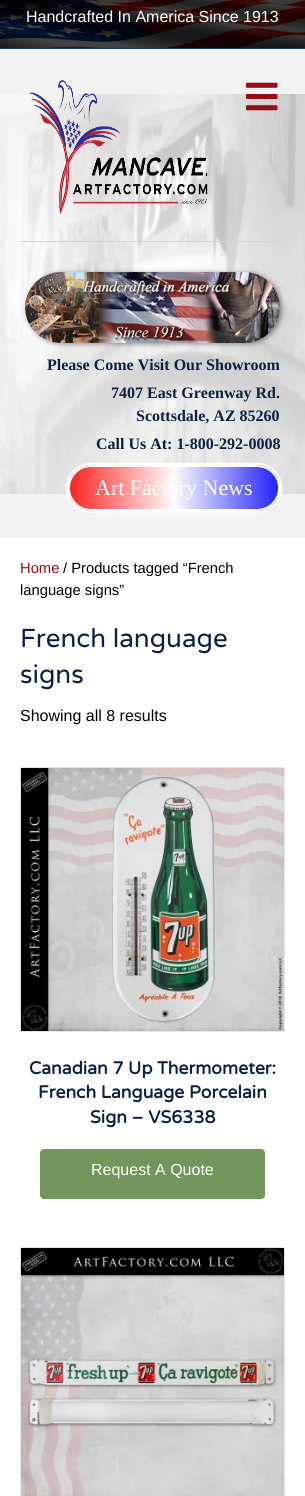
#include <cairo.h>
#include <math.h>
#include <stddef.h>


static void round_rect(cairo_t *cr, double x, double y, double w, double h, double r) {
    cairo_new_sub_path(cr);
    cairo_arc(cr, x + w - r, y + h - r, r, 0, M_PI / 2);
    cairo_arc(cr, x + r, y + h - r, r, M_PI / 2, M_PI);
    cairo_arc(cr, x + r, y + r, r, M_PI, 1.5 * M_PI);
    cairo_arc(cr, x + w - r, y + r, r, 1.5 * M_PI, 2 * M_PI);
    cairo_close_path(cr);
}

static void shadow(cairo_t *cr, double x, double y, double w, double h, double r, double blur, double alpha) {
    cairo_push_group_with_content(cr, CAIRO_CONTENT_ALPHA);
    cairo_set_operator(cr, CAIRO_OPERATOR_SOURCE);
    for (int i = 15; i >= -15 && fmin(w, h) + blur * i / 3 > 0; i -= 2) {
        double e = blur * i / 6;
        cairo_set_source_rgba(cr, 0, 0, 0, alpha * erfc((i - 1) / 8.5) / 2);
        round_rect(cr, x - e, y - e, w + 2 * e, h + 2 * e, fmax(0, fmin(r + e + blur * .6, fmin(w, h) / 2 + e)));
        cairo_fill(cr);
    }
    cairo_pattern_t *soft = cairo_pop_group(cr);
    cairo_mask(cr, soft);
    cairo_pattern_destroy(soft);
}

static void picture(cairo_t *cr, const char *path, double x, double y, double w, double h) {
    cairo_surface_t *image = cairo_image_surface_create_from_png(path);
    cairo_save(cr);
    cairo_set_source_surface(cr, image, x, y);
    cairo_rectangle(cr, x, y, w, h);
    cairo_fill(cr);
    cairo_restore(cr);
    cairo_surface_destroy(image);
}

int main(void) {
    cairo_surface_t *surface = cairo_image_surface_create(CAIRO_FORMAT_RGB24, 305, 1496);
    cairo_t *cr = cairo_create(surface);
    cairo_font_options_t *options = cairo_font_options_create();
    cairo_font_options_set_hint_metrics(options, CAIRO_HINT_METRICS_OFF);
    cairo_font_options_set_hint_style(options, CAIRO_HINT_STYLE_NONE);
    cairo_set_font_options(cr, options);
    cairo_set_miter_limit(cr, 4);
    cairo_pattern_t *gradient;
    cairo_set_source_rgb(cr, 0.949, 0.949, 0.949);
    cairo_paint(cr);
    picture(cr, "img1.png", 0, 0, 305, 48);
    cairo_set_source_rgb(cr, 0.086, 0.239, 0.475);
    cairo_rectangle(cr, 0, 48, 305, 1);
    cairo_fill(cr);
    cairo_select_font_face(cr, "Liberation Sans", CAIRO_FONT_SLANT_NORMAL, CAIRO_FONT_WEIGHT_NORMAL);
    cairo_set_font_size(cr, 16);
    cairo_set_source_rgb(cr, 1, 1, 1);
    cairo_move_to(cr, 26, 22);
    cairo_show_text(cr, "Handcrafted In America Since 1913");
    picture(cr, "img2.png", 0, 94, 305, 400);
    picture(cr, "img3.png", 246, 82, 32, 29);
    picture(cr, "img4.png", 29, 80, 179, 135);
    cairo_set_source_rgb(cr, 0.851, 0.847, 0.722);
    cairo_rectangle(cr, 20, 241, 265, 1);
    cairo_fill(cr);
    cairo_set_source_rgb(cr, 0, 0, 0);
    shadow(cr, 27, 273, 255, 71, 35.5, 2.5, 0.4);
    picture(cr, "img5.png", 25, 272, 255, 71);
    cairo_select_font_face(cr, "Liberation Serif", CAIRO_FONT_SLANT_NORMAL, CAIRO_FONT_WEIGHT_BOLD);
    cairo_set_source_rgb(cr, 0.047, 0.129, 0.255);
    cairo_move_to(cr, 47, 370);
    cairo_show_text(cr, "Please Come Visit Our Showroom");
    cairo_move_to(cr, 111, 398);
    cairo_show_text(cr, "7407 East Greenway Rd.");
    cairo_move_to(cr, 136, 421);
    cairo_show_text(cr, "Scottsdale, AZ 85260");
    cairo_move_to(cr, 96, 449);
    cairo_show_text(cr, "Call Us At: 1-800-292-0008");
    cairo_save(cr);
    cairo_set_fill_rule(cr, CAIRO_FILL_RULE_EVEN_ODD);
    cairo_new_path(cr);
    cairo_move_to(cr, 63, 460);
    cairo_line_to(cr, 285, 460);
    cairo_line_to(cr, 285, 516);
    cairo_line_to(cr, 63, 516);
    cairo_close_path(cr);
    cairo_move_to(cr, 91, 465);
    cairo_line_to(cr, 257, 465);
    cairo_curve_to(cr, 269.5, 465, 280, 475.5, 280, 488);
    cairo_curve_to(cr, 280, 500.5, 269.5, 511, 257, 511);
    cairo_line_to(cr, 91, 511);
    cairo_curve_to(cr, 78.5, 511, 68, 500.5, 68, 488);
    cairo_curve_to(cr, 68, 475.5, 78.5, 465, 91, 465);
    cairo_close_path(cr);
    cairo_clip(cr);
    cairo_set_source_rgb(cr, 1, 1, 1);
    shadow(cr, 66, 463, 216, 50, 25, 0.5, 1);
    cairo_restore(cr);
    cairo_save(cr);
    round_rect(cr, 68, 465, 212, 46, 23);
    cairo_clip(cr);
    gradient = cairo_pattern_create_linear(70, 488, 278, 488);
    cairo_pattern_add_color_stop_rgba(gradient, 0, 1, 0, 0, 0.85);
    cairo_pattern_add_color_stop_rgba(gradient, 0.5, 1, 1, 1, 0.85);
    cairo_pattern_add_color_stop_rgba(gradient, 1, 0, 0, 1, 0.85);
    cairo_set_source(cr, gradient);
    cairo_pattern_destroy(gradient);
    cairo_rectangle(cr, 70, 465, 208, 46);
    cairo_fill(cr);
    cairo_restore(cr);
    round_rect(cr, 69, 466, 210, 44, 22);
    cairo_set_source_rgb(cr, 1, 1, 1);
    cairo_stroke(cr);
    cairo_select_font_face(cr, "Liberation Serif", CAIRO_FONT_SLANT_NORMAL, CAIRO_FONT_WEIGHT_NORMAL);
    cairo_set_font_size(cr, 22);
    cairo_move_to(cr, 95, 495);
    cairo_show_text(cr, "Art Factory News");
    cairo_rectangle(cr, 0, 538, 305, 958);
    cairo_fill(cr);
    cairo_select_font_face(cr, "Liberation Sans", CAIRO_FONT_SLANT_NORMAL, CAIRO_FONT_WEIGHT_NORMAL);
    cairo_set_font_size(cr, 14.75);
    cairo_set_source_rgb(cr, 0.58, 0.059, 0.082);
    cairo_move_to(cr, 20, 573);
    cairo_show_text(cr, "Home");
    cairo_set_source_rgb(cr, 0, 0, 0);
    cairo_move_to(cr, 63, 573);
    cairo_show_text(cr, "/ Products tagged “French");
    cairo_move_to(cr, 20, 595);
    cairo_show_text(cr, "language signs”");
    cairo_select_font_face(cr, "Varela Round", CAIRO_FONT_SLANT_NORMAL, CAIRO_FONT_WEIGHT_NORMAL);
    cairo_set_font_size(cr, 26);
    cairo_set_source_rgb(cr, 0.047, 0.129, 0.255);
    cairo_move_to(cr, 20, 647);
    cairo_show_text(cr, "French language");
    cairo_move_to(cr, 20, 683);
    cairo_show_text(cr, "signs");
    cairo_select_font_face(cr, "Liberation Sans", CAIRO_FONT_SLANT_NORMAL, CAIRO_FONT_WEIGHT_NORMAL);
    cairo_set_font_size(cr, 16);
    cairo_set_source_rgb(cr, 0, 0, 0);
    cairo_move_to(cr, 20, 721);
    cairo_show_text(cr, "Showing all 8 results");
    cairo_rectangle(cr, 20.5, 767.5, 264, 264);
    cairo_set_source_rgb(cr, 0.902, 0.902, 0.902);
    cairo_set_line_width(cr, 1);
    cairo_stroke(cr);
    picture(cr, "img6.png", 21, 768, 263, 263);
    cairo_select_font_face(cr, "Varela Round", CAIRO_FONT_SLANT_NORMAL, CAIRO_FONT_WEIGHT_BOLD);
    cairo_set_font_size(cr, 17.6);
    cairo_set_source_rgb(cr, 0.047, 0.129, 0.255);
    cairo_move_to(cr, 29, 1074);
    cairo_show_text(cr, "Canadian 7 Up Thermometer:");
    cairo_move_to(cr, 38, 1098);
    cairo_show_text(cr, "French Language Porcelain");
    cairo_move_to(cr, 90, 1123);
    cairo_show_text(cr, "Sign – VS6338");
    cairo_set_source_rgb(cr, 0.447, 0.588, 0.357);
    round_rect(cr, 40.5, 1149.5, 224, 49, 3.5);
    cairo_fill_preserve(cr);
    cairo_stroke(cr);
    cairo_select_font_face(cr, "Liberation Sans", CAIRO_FONT_SLANT_NORMAL, CAIRO_FONT_WEIGHT_NORMAL);
    cairo_set_font_size(cr, 16);
    cairo_set_source_rgb(cr, 1, 1, 1);
    cairo_move_to(cr, 91, 1175);
    cairo_show_text(cr, "Request A Quote");
    cairo_rectangle(cr, 20.5, 1247.5, 264, 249);
    cairo_set_source_rgb(cr, 0.902, 0.902, 0.902);
    cairo_stroke(cr);
    picture(cr, "img7.png", 21, 1248, 263, 248);
    cairo_surface_write_to_png(surface, "page.png");
    cairo_font_options_destroy(options);
    cairo_destroy(cr);
    cairo_surface_destroy(surface);
    return 0;
}
